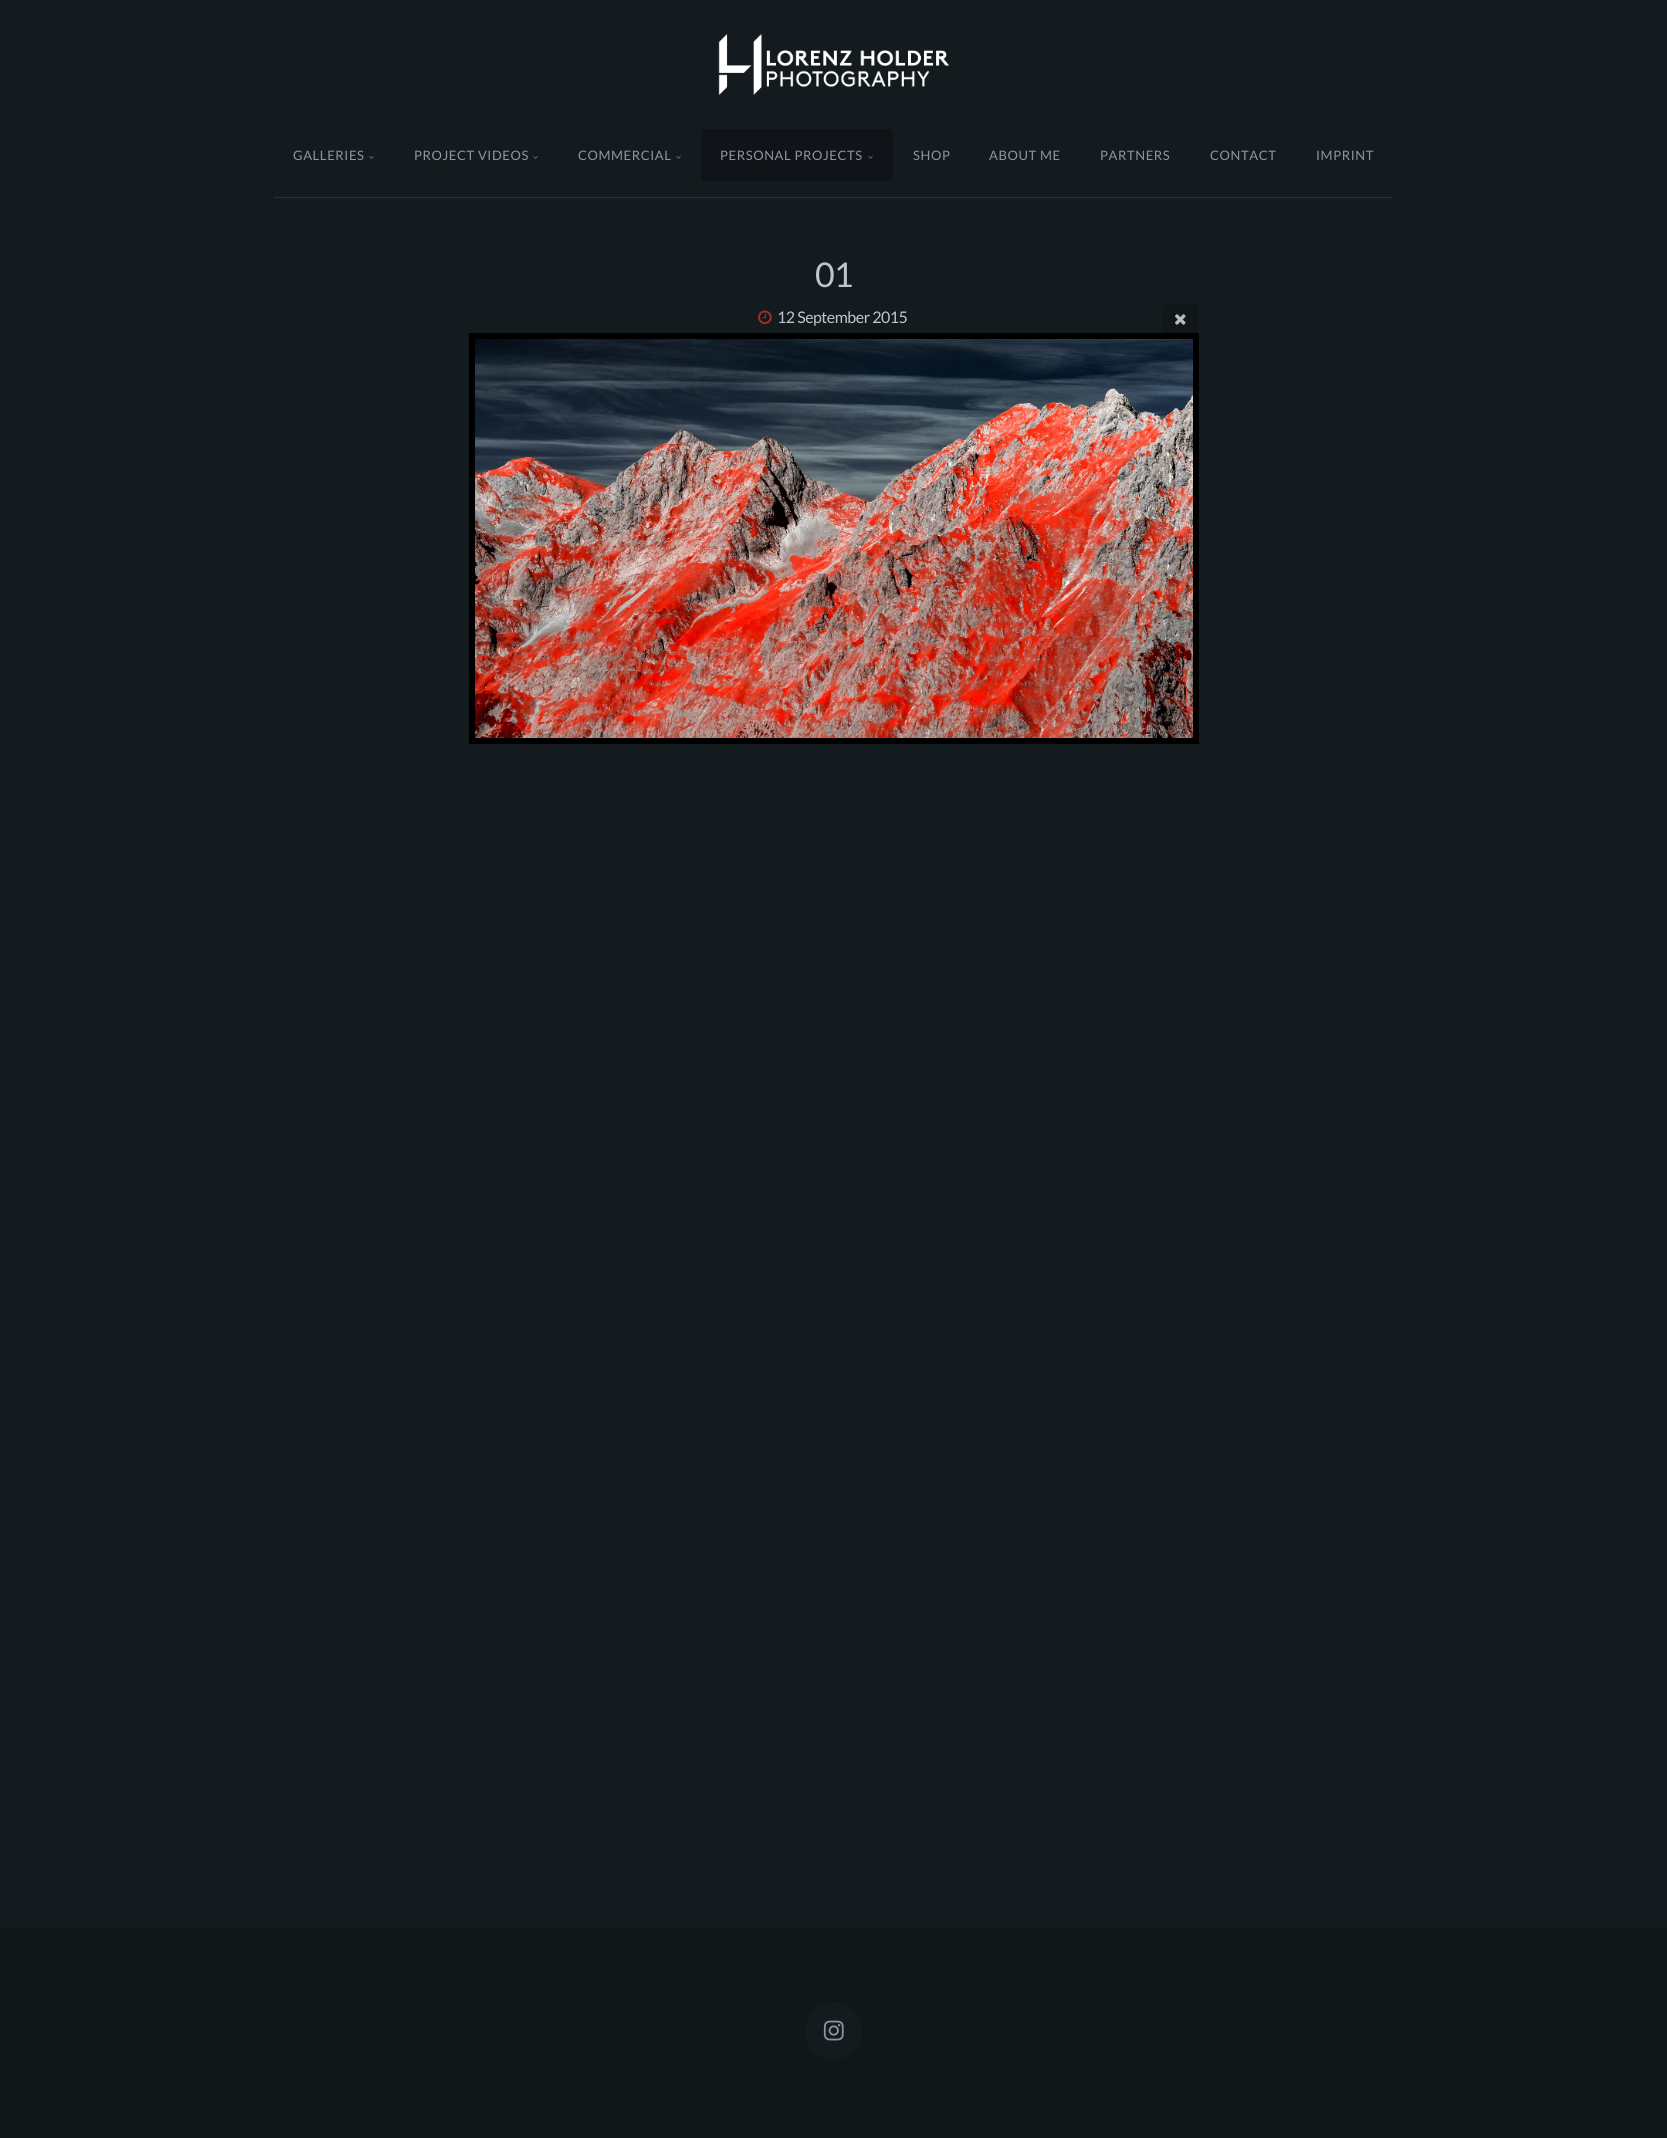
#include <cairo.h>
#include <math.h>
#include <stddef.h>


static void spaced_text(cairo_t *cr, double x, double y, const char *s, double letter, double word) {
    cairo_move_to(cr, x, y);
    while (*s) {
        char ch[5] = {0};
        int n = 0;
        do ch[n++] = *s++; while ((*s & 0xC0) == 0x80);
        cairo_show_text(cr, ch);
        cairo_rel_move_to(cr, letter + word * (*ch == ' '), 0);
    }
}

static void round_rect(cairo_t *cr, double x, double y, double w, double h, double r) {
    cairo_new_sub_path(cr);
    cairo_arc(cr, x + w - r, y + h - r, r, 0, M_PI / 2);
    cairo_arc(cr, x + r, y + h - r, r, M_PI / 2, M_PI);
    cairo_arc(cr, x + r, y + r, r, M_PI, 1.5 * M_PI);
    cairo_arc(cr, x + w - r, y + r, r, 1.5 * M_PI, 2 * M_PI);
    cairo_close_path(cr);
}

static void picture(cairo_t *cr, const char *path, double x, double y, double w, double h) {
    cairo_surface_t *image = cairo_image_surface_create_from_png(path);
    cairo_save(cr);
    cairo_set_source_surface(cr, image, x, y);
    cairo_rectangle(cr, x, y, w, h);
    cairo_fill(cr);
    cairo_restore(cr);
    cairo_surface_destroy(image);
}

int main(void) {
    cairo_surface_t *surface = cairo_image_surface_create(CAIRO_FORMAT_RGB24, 1667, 2138);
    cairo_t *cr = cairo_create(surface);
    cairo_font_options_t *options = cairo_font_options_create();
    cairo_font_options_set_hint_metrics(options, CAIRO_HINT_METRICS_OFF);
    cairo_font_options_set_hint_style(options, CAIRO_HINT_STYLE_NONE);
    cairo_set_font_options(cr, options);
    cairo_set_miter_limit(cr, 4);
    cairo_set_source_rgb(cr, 0.067, 0.086, 0.094);
    cairo_paint(cr);
    cairo_set_source_rgb(cr, 0.082, 0.106, 0.118);
    cairo_rectangle(cr, 0, 0, 1667, 1929);
    cairo_fill(cr);
    picture(cr, "img1.png", 718, 34, 231, 61);
    cairo_set_source_rgb(cr, 0.157, 0.2, 0.224);
    cairo_rectangle(cr, 274, 197, 1119, 1);
    cairo_fill(cr);
    cairo_select_font_face(cr, "Lato", CAIRO_FONT_SLANT_NORMAL, CAIRO_FONT_WEIGHT_NORMAL);
    cairo_set_font_size(cr, 13);
    cairo_set_source_rgb(cr, 0.545, 0.592, 0.627);
    spaced_text(cr, 293, 160, "GALLERIES", 0.6, 0);
    picture(cr, "img2.png", 369, 156, 5, 3);
    spaced_text(cr, 414, 160, "PROJECT VIDEOS", 0.6, 0);
    picture(cr, "img2.png", 533, 156, 5, 3);
    spaced_text(cr, 578, 160, "COMMERCIAL", 0.6, 0);
    picture(cr, "img2.png", 676, 156, 5, 3);
    cairo_set_source_rgb(cr, 0.063, 0.078, 0.09);
    round_rect(cr, 701, 129, 192, 52, 3);
    cairo_fill(cr);
    cairo_set_source_rgb(cr, 0.545, 0.592, 0.627);
    spaced_text(cr, 720, 160, "PERSONAL PROJECTS", 0.6, 0);
    picture(cr, "img3.png", 868, 156, 5, 3);
    spaced_text(cr, 913, 160, "SHOP", 0.6, 0);
    spaced_text(cr, 989, 160, "ABOUT ME", 0.6, 0);
    spaced_text(cr, 1100, 160, "PARTNERS", 0.6, 0);
    spaced_text(cr, 1210, 160, "CONTACT", 0.6, 0);
    spaced_text(cr, 1316, 160, "IMPRINT", 0.6, 0);
    cairo_set_font_size(cr, 34);
    cairo_set_source_rgb(cr, 0.749, 0.776, 0.796);
    spaced_text(cr, 815, 287, "01", -1, 0);
    picture(cr, "img4.png", 758, 310, 14, 15);
    cairo_set_font_size(cr, 16);
    spaced_text(cr, 777, 323, "12 September 2015", -0.5, 0);
    cairo_set_source_rgb(cr, 0.067, 0.086, 0.094);
    cairo_new_path(cr);
    cairo_move_to(cr, 1166, 303);
    cairo_line_to(cr, 1195, 303);
    cairo_curve_to(cr, 1196.5, 303, 1198, 304.5, 1198, 306);
    cairo_line_to(cr, 1198, 334);
    cairo_line_to(cr, 1163, 334);
    cairo_line_to(cr, 1163, 306);
    cairo_curve_to(cr, 1163, 304.5, 1164.5, 303, 1166, 303);
    cairo_close_path(cr);
    cairo_fill(cr);
    picture(cr, "img5.png", 1175, 314, 11, 11);
    cairo_set_source_rgb(cr, 0, 0, 0);
    cairo_rectangle(cr, 469, 333, 730, 411);
    cairo_fill(cr);
    picture(cr, "img6.png", 475, 339, 718, 399);
    cairo_set_source_rgb(cr, 0.082, 0.106, 0.118);
    round_rect(cr, 805, 2002, 57, 58, 28.5);
    cairo_fill(cr);
    picture(cr, "img7.png", 823, 2020, 21, 21);
    cairo_surface_write_to_png(surface, "page.png");
    cairo_font_options_destroy(options);
    cairo_destroy(cr);
    cairo_surface_destroy(surface);
    return 0;
}
